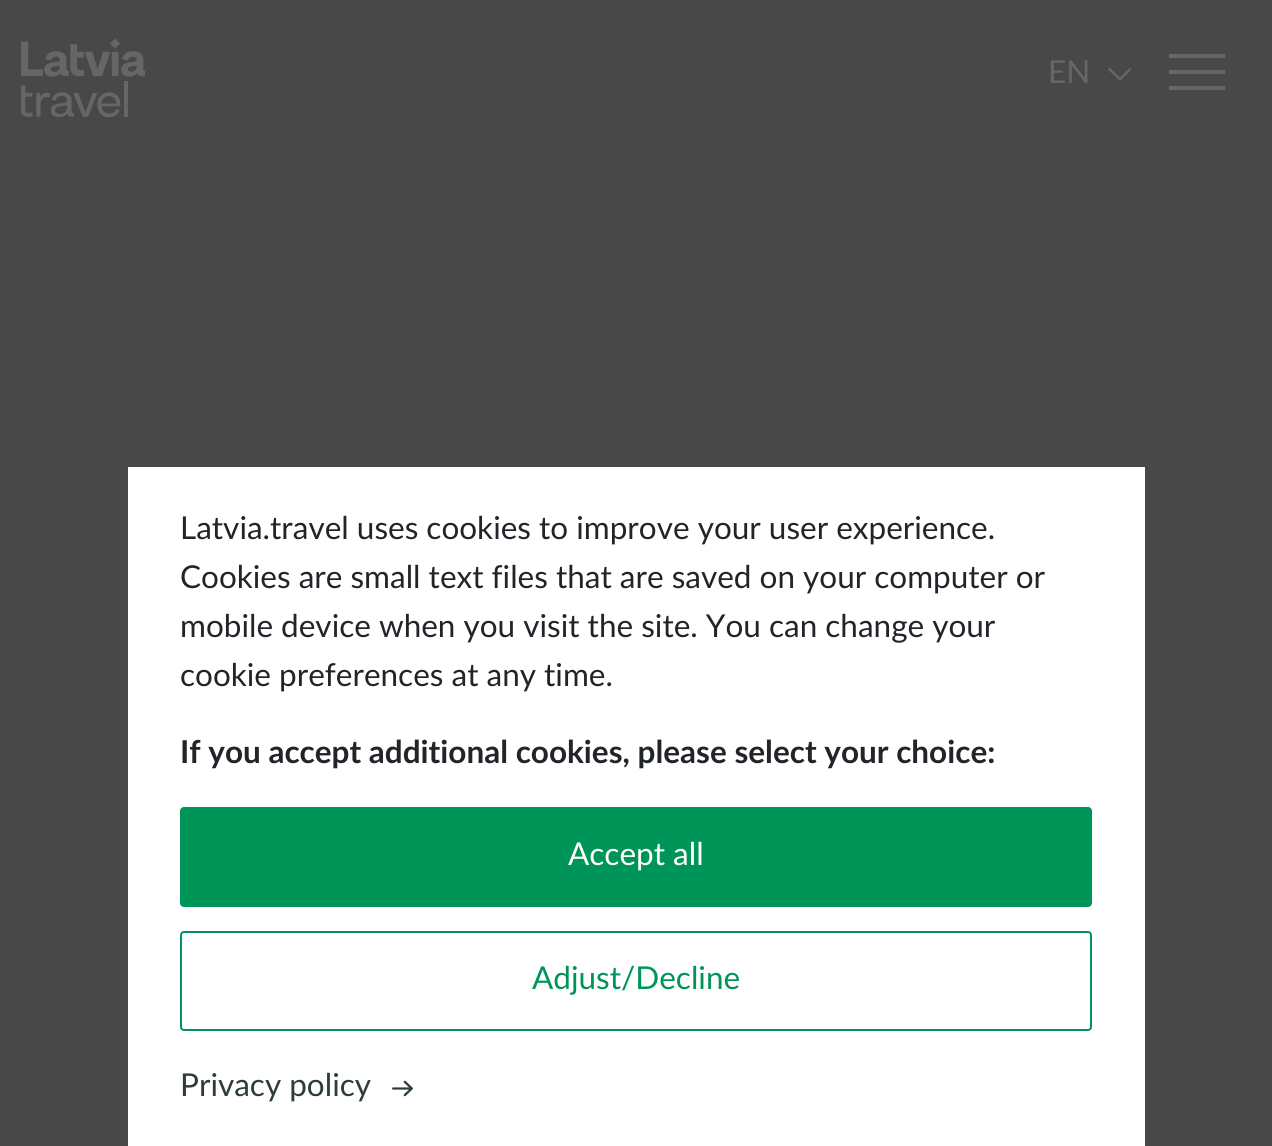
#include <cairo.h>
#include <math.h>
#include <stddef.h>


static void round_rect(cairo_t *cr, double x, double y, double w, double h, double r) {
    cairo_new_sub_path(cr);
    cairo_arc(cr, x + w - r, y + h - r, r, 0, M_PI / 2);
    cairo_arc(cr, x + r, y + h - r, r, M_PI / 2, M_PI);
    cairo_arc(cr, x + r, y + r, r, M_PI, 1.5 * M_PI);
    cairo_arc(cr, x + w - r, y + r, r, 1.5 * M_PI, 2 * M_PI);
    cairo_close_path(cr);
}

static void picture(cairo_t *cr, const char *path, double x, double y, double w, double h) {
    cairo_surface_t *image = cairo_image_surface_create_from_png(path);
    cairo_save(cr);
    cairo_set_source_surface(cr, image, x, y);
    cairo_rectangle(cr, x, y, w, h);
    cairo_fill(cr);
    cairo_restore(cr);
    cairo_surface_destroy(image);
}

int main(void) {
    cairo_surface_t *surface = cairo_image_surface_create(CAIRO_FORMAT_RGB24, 1272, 1146);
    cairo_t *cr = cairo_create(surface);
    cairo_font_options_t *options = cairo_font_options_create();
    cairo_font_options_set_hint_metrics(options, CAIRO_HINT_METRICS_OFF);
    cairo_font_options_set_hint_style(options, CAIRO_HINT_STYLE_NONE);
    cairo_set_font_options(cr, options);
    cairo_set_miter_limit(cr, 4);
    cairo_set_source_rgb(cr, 0.282, 0.282, 0.282);
    cairo_paint(cr);
    picture(cr, "img1.png", 21, 39, 124, 78);
    cairo_select_font_face(cr, "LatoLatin", CAIRO_FONT_SLANT_NORMAL, CAIRO_FONT_WEIGHT_NORMAL);
    cairo_set_font_size(cr, 31.5);
    cairo_set_source_rgb(cr, 0.4, 0.4, 0.4);
    cairo_move_to(cr, 1048, 83);
    cairo_show_text(cr, "EN");
    cairo_new_path(cr);
    cairo_move_to(cr, 1120, 81);
    cairo_line_to(cr, 1108, 69.5);
    cairo_line_to(cr, 1109.5, 67.5);
    cairo_line_to(cr, 1120, 77.5);
    cairo_line_to(cr, 1130, 67.5);
    cairo_line_to(cr, 1131.5, 69.5);
    cairo_close_path(cr);
    cairo_fill(cr);
    cairo_rectangle(cr, 1169, 54, 56, 4);
    cairo_fill(cr);
    cairo_rectangle(cr, 1169, 70, 56, 4);
    cairo_fill(cr);
    cairo_rectangle(cr, 1169, 86, 56, 4);
    cairo_fill(cr);
    cairo_set_source_rgb(cr, 1, 1, 1);
    cairo_rectangle(cr, 128, 467, 1017, 679);
    cairo_fill(cr);
    cairo_set_source_rgb(cr, 0.129, 0.145, 0.161);
    cairo_move_to(cr, 180, 539);
    cairo_show_text(cr, "Latvia.travel uses cookies to improve your user experience.");
    cairo_move_to(cr, 180, 588);
    cairo_show_text(cr, "Cookies are small text files that are saved on your computer or");
    cairo_move_to(cr, 180, 637);
    cairo_show_text(cr, "mobile device when you visit the site. You can change your");
    cairo_move_to(cr, 180, 686);
    cairo_show_text(cr, "cookie preferences at any time.");
    cairo_select_font_face(cr, "LatoLatin", CAIRO_FONT_SLANT_NORMAL, CAIRO_FONT_WEIGHT_BOLD);
    cairo_move_to(cr, 180, 763);
    cairo_show_text(cr, "If you accept additional cookies, please select your choice:");
    cairo_set_source_rgb(cr, 0, 0.584, 0.345);
    round_rect(cr, 180, 807, 912, 100, 4);
    cairo_fill(cr);
    cairo_select_font_face(cr, "LatoLatin", CAIRO_FONT_SLANT_NORMAL, CAIRO_FONT_WEIGHT_NORMAL);
    cairo_set_source_rgb(cr, 1, 1, 1);
    cairo_move_to(cr, 568, 865);
    cairo_show_text(cr, "Accept all");
    round_rect(cr, 181, 932, 910, 98, 3);
    cairo_set_source_rgb(cr, 0, 0.584, 0.345);
    cairo_stroke(cr);
    cairo_move_to(cr, 532, 989);
    cairo_show_text(cr, "Adjust/Decline");
    cairo_set_source_rgb(cr, 0.18, 0.239, 0.212);
    cairo_move_to(cr, 180, 1096);
    cairo_show_text(cr, "Privacy policy");
    picture(cr, "img2.png", 392, 1080, 21, 17);
    cairo_surface_write_to_png(surface, "page.png");
    cairo_font_options_destroy(options);
    cairo_destroy(cr);
    cairo_surface_destroy(surface);
    return 0;
}
